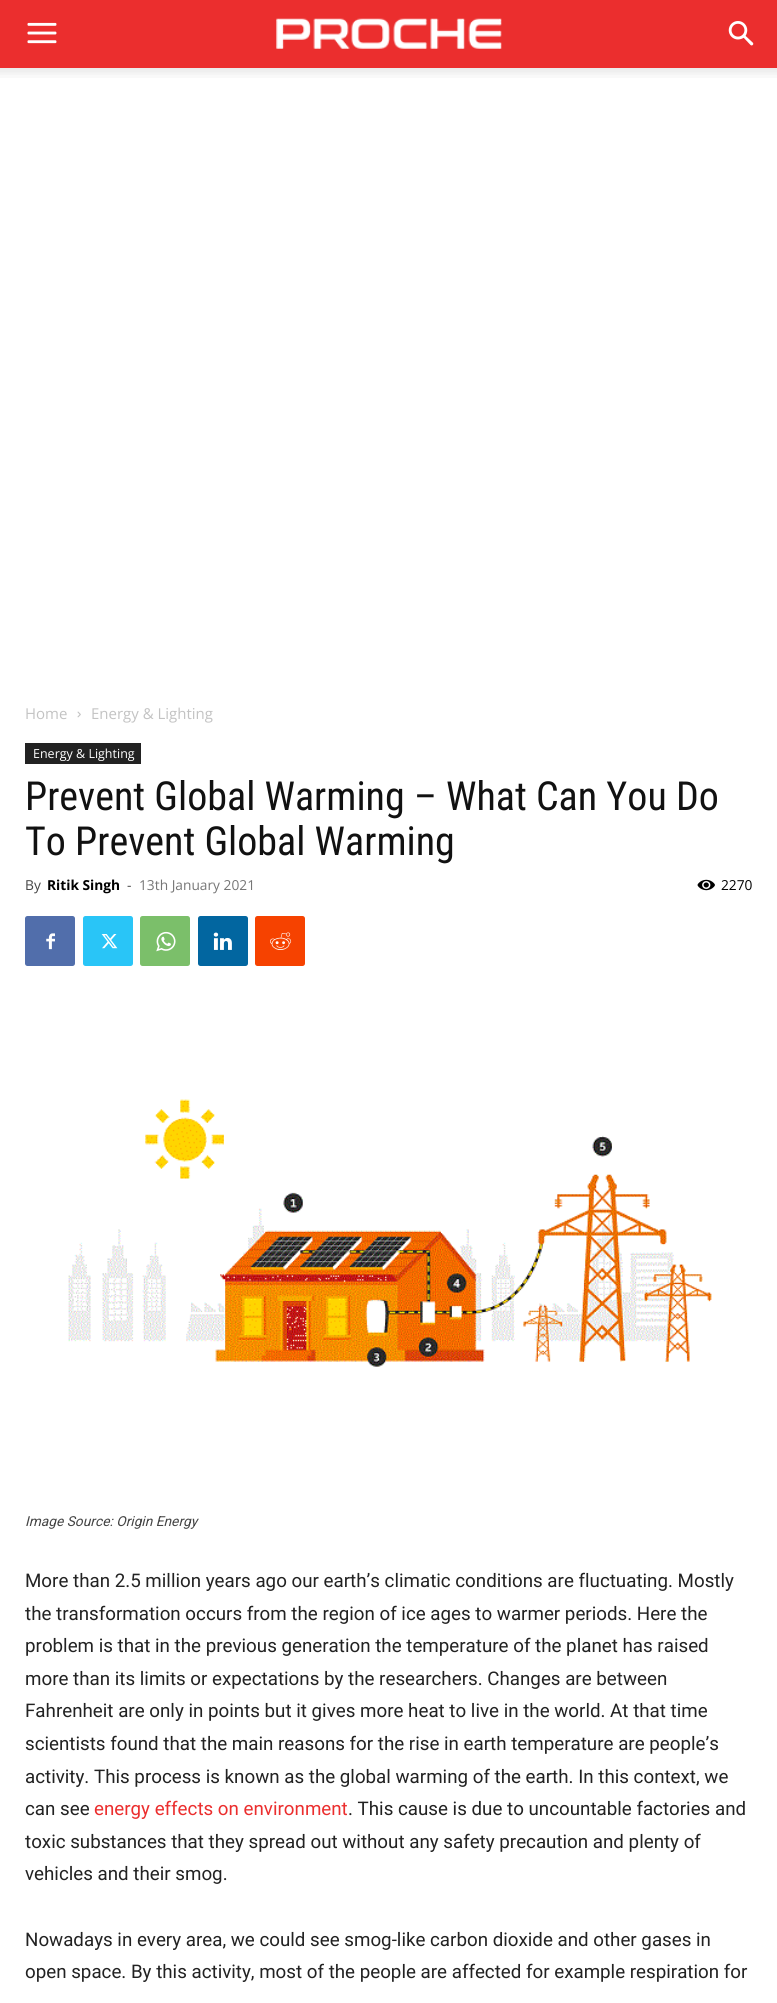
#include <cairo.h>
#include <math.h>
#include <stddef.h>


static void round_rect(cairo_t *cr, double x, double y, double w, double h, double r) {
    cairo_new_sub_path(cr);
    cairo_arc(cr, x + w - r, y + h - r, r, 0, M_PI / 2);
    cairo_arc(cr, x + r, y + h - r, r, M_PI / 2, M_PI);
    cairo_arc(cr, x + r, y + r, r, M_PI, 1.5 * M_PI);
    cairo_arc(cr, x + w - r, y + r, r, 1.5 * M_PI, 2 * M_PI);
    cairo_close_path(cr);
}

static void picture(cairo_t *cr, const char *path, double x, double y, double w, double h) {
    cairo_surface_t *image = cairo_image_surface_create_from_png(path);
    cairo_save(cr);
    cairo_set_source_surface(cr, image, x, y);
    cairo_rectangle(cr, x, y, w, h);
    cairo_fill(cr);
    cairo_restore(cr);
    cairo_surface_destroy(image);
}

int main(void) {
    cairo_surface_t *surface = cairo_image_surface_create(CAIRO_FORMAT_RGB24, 777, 2003);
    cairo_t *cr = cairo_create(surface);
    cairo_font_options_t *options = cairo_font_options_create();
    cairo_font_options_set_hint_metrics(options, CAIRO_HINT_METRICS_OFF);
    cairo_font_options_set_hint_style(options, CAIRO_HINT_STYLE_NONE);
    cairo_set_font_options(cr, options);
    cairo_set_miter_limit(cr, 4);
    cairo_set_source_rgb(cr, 1, 1, 1);
    cairo_paint(cr);
    cairo_set_source_rgb(cr, 0.918, 0.18, 0.18);
    cairo_rectangle(cr, 0, 0, 777, 68);
    cairo_fill(cr);
    picture(cr, "img1.png", 27, 22, 30, 22);
    picture(cr, "img2.png", 276, 18, 226, 31);
    picture(cr, "img3.png", 728, 21, 26, 25);
    picture(cr, "img4.png", 0, 68, 777, 10);
    cairo_select_font_face(cr, "Open Sans", CAIRO_FONT_SLANT_NORMAL, CAIRO_FONT_WEIGHT_NORMAL);
    cairo_set_font_size(cr, 15);
    cairo_set_source_rgb(cr, 0.765, 0.765, 0.765);
    cairo_move_to(cr, 25, 719);
    cairo_show_text(cr, "Home");
    picture(cr, "img5.png", 77, 711, 4, 7);
    cairo_move_to(cr, 91, 719);
    cairo_show_text(cr, "Energy & Lighting");
    cairo_set_source_rgb(cr, 0.133, 0.133, 0.133);
    cairo_rectangle(cr, 25, 743, 116, 21);
    cairo_fill(cr);
    cairo_set_font_size(cr, 12.5);
    cairo_set_source_rgb(cr, 1, 1, 1);
    cairo_move_to(cr, 33, 758);
    cairo_show_text(cr, "Energy & Lighting");
    cairo_select_font_face(cr, "Roboto Condensed", CAIRO_FONT_SLANT_NORMAL, CAIRO_FONT_WEIGHT_NORMAL);
    cairo_set_font_size(cr, 40);
    cairo_set_source_rgb(cr, 0.067, 0.067, 0.067);
    cairo_move_to(cr, 25, 810);
    cairo_show_text(cr, "Prevent Global Warming – What Can You Do");
    cairo_move_to(cr, 25, 855);
    cairo_show_text(cr, "To Prevent Global Warming");
    cairo_select_font_face(cr, "Open Sans", CAIRO_FONT_SLANT_NORMAL, CAIRO_FONT_WEIGHT_NORMAL);
    cairo_set_font_size(cr, 13.75);
    cairo_set_source_rgb(cr, 0.267, 0.267, 0.267);
    cairo_move_to(cr, 25, 890);
    cairo_show_text(cr, "By");
    cairo_select_font_face(cr, "Open Sans", CAIRO_FONT_SLANT_NORMAL, CAIRO_FONT_WEIGHT_BOLD);
    cairo_set_source_rgb(cr, 0, 0, 0);
    cairo_move_to(cr, 47, 890);
    cairo_show_text(cr, "Ritik Singh");
    cairo_select_font_face(cr, "Open Sans", CAIRO_FONT_SLANT_NORMAL, CAIRO_FONT_WEIGHT_NORMAL);
    cairo_set_source_rgb(cr, 0.267, 0.267, 0.267);
    cairo_move_to(cr, 127, 890);
    cairo_show_text(cr, "-");
    cairo_set_source_rgb(cr, 0.463, 0.463, 0.463);
    cairo_move_to(cr, 139, 890);
    cairo_show_text(cr, "13th January 2021");
    picture(cr, "img6.png", 697, 879, 18, 12);
    cairo_set_source_rgb(cr, 0, 0, 0);
    cairo_move_to(cr, 721, 890);
    cairo_show_text(cr, "2270");
    cairo_set_source_rgb(cr, 0.318, 0.431, 0.671);
    round_rect(cr, 25, 916, 50, 50, 2.5);
    cairo_fill(cr);
    picture(cr, "img7.png", 46, 933, 9, 17);
    cairo_set_source_rgb(cr, 0.161, 0.773, 0.965);
    round_rect(cr, 83, 916, 50, 50, 2.5);
    cairo_fill(cr);
    picture(cr, "img8.png", 101, 934, 17, 15);
    cairo_set_source_rgb(cr, 0.482, 0.749, 0.416);
    round_rect(cr, 140, 916, 50, 50, 2.5);
    cairo_fill(cr);
    picture(cr, "img9.png", 156, 931, 20, 21);
    cairo_set_source_rgb(cr, 0.008, 0.4, 0.627);
    round_rect(cr, 198, 916, 50, 50, 2.5);
    cairo_fill(cr);
    picture(cr, "img10.png", 213, 932, 19, 18);
    cairo_set_source_rgb(cr, 0.961, 0.259, 0);
    round_rect(cr, 255, 916, 50, 50, 2.5);
    cairo_fill(cr);
    picture(cr, "img11.png", 270, 932, 22, 18);
    picture(cr, "img12.png", 68, 1099, 644, 268);
    cairo_select_font_face(cr, "Roboto", CAIRO_FONT_SLANT_ITALIC, CAIRO_FONT_WEIGHT_NORMAL);
    cairo_set_source_rgb(cr, 0.267, 0.267, 0.267);
    cairo_move_to(cr, 25, 1526);
    cairo_show_text(cr, "Image Source: Origin Energy");
    cairo_select_font_face(cr, "Roboto", CAIRO_FONT_SLANT_NORMAL, CAIRO_FONT_WEIGHT_NORMAL);
    cairo_set_font_size(cr, 18.75);
    cairo_set_source_rgb(cr, 0.133, 0.133, 0.133);
    cairo_move_to(cr, 25, 1587);
    cairo_show_text(cr, "More than 2.5 million years ago our earth’s climatic conditions are fluctuating. Mostly");
    cairo_move_to(cr, 25, 1620);
    cairo_show_text(cr, "the transformation occurs from the region of ice ages to warmer periods. Here the");
    cairo_move_to(cr, 25, 1652);
    cairo_show_text(cr, "problem is that in the previous generation the temperature of the planet has raised");
    cairo_move_to(cr, 25, 1685);
    cairo_show_text(cr, "more than its limits or expectations by the researchers. Changes are between");
    cairo_move_to(cr, 25, 1717);
    cairo_show_text(cr, "Fahrenheit are only in points but it gives more heat to live in the world. At that time");
    cairo_move_to(cr, 25, 1750);
    cairo_show_text(cr, "scientists found that the main reasons for the rise in earth temperature are people’s");
    cairo_move_to(cr, 25, 1783);
    cairo_show_text(cr, "activity. This process is known as the global warming of the earth. In this context, we");
    cairo_move_to(cr, 25, 1815);
    cairo_show_text(cr, "can see");
    cairo_set_source_rgb(cr, 0.918, 0.18, 0.18);
    cairo_move_to(cr, 94, 1815);
    cairo_show_text(cr, "energy effects on environment");
    cairo_set_source_rgb(cr, 0.133, 0.133, 0.133);
    cairo_move_to(cr, 348, 1815);
    cairo_show_text(cr, ". This cause is due to uncountable factories and");
    cairo_move_to(cr, 25, 1848);
    cairo_show_text(cr, "toxic substances that they spread out without any safety precaution and plenty of");
    cairo_move_to(cr, 25, 1880);
    cairo_show_text(cr, "vehicles and their smog.");
    cairo_move_to(cr, 25, 1946);
    cairo_show_text(cr, "Nowadays in every area, we could see smog-like carbon dioxide and other gases in");
    cairo_move_to(cr, 25, 1978);
    cairo_show_text(cr, "open space. By this activity, most of the people are affected for example respiration for");
    cairo_surface_write_to_png(surface, "page.png");
    cairo_font_options_destroy(options);
    cairo_destroy(cr);
    cairo_surface_destroy(surface);
    return 0;
}
